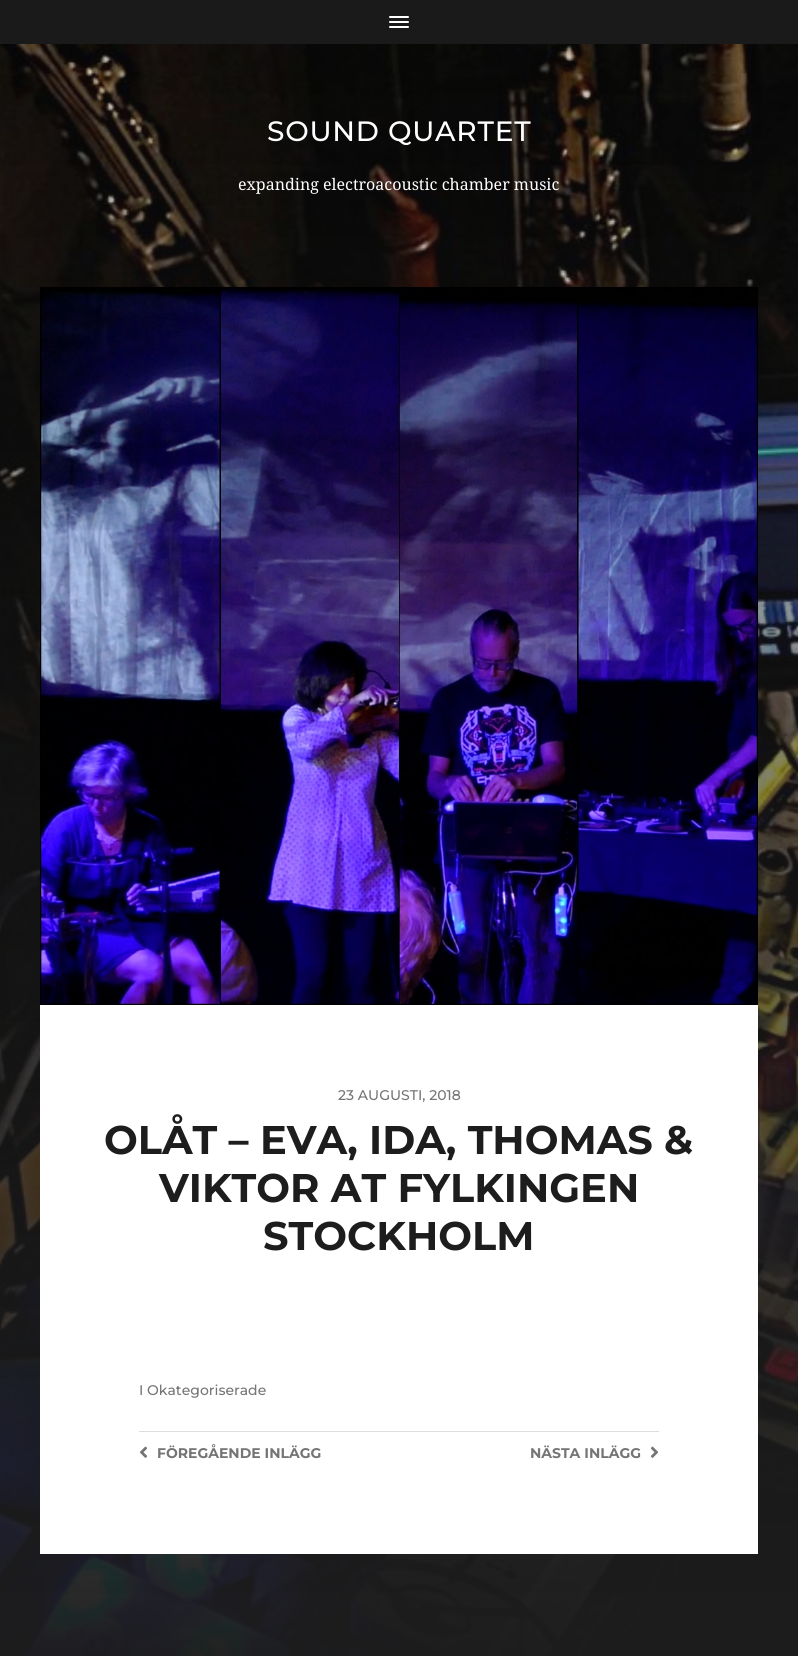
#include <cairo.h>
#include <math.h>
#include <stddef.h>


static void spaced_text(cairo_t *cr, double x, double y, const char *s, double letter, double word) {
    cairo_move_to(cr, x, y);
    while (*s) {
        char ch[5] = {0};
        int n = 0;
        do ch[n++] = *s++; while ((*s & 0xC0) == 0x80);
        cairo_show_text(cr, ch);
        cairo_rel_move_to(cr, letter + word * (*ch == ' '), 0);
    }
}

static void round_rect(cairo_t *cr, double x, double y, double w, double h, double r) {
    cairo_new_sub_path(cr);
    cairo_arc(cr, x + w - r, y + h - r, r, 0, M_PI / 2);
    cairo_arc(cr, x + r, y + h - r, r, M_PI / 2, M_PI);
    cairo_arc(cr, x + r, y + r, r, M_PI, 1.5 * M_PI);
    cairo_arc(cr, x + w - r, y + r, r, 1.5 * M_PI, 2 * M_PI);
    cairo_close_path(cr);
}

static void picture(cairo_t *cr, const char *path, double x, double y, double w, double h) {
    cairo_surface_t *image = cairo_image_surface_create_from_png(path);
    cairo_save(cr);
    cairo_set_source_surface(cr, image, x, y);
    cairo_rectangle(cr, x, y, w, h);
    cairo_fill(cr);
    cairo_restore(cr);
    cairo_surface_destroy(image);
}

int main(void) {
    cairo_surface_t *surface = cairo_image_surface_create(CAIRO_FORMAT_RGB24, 798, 1656);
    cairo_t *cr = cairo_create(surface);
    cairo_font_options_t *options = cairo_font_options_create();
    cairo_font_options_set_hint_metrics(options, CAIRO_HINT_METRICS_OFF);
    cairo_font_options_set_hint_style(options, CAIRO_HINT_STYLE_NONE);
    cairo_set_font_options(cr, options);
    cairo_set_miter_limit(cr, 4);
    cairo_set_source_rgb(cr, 0.114, 0.114, 0.114);
    cairo_paint(cr);
    cairo_set_source_rgb(cr, 0.102, 0.102, 0.102);
    round_rect(cr, 0, 0, 798, 44, 3);
    cairo_fill(cr);
    cairo_set_source_rgb(cr, 1, 1, 1);
    round_rect(cr, 389, 16, 20, 2, 1);
    cairo_fill(cr);
    round_rect(cr, 389, 21, 20, 2, 1);
    cairo_fill(cr);
    round_rect(cr, 389, 26, 20, 2, 1);
    cairo_fill(cr);
    picture(cr, "img1.png", 0, 44, 798, 1612);
    cairo_select_font_face(cr, "Montserrat Thin", CAIRO_FONT_SLANT_NORMAL, CAIRO_FONT_WEIGHT_NORMAL);
    cairo_set_font_size(cr, 28);
    spaced_text(cr, 267, 141, "SOUND QUARTET", 0.75, 0);
    cairo_select_font_face(cr, "Droid Serif", CAIRO_FONT_SLANT_NORMAL, CAIRO_FONT_WEIGHT_NORMAL);
    cairo_set_font_size(cr, 16);
    cairo_move_to(cr, 238, 190);
    cairo_show_text(cr, "expanding electroacoustic chamber music");
    cairo_rectangle(cr, 40, 1005, 718, 549);
    cairo_fill(cr);
    picture(cr, "img2.png", 40, 287, 718, 718);
    cairo_select_font_face(cr, "Montserrat Thin", CAIRO_FONT_SLANT_NORMAL, CAIRO_FONT_WEIGHT_NORMAL);
    cairo_set_font_size(cr, 14);
    cairo_set_source_rgb(cr, 0.459, 0.459, 0.459);
    cairo_move_to(cr, 338, 1100);
    cairo_show_text(cr, "23 AUGUSTI, 2018");
    cairo_select_font_face(cr, "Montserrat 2 Thin", CAIRO_FONT_SLANT_NORMAL, CAIRO_FONT_WEIGHT_NORMAL);
    cairo_set_font_size(cr, 40);
    cairo_set_source_rgb(cr, 0.114, 0.114, 0.114);
    cairo_move_to(cr, 104, 1154);
    cairo_show_text(cr, "OLÅT – EVA, IDA, THOMAS &");
    cairo_move_to(cr, 159, 1202);
    cairo_show_text(cr, "VIKTOR AT FYLKINGEN");
    cairo_move_to(cr, 263, 1250);
    cairo_show_text(cr, "STOCKHOLM");
    cairo_select_font_face(cr, "Montserrat Thin", CAIRO_FONT_SLANT_NORMAL, CAIRO_FONT_WEIGHT_NORMAL);
    cairo_set_font_size(cr, 14);
    cairo_set_source_rgb(cr, 0.459, 0.459, 0.459);
    cairo_move_to(cr, 139, 1395);
    cairo_show_text(cr, "I Okategoriserade");
    cairo_set_source_rgb(cr, 0.867, 0.867, 0.867);
    cairo_rectangle(cr, 139, 1431, 520, 1);
    cairo_fill(cr);
    picture(cr, "img3.png", 139, 1446, 9, 12);
    cairo_select_font_face(cr, "Montserrat 2 Thin", CAIRO_FONT_SLANT_NORMAL, CAIRO_FONT_WEIGHT_NORMAL);
    cairo_set_source_rgb(cr, 0.459, 0.459, 0.459);
    cairo_move_to(cr, 157, 1458);
    cairo_show_text(cr, "FÖREGÅENDE INLÄGG");
    cairo_move_to(cr, 530, 1458);
    cairo_show_text(cr, "NÄSTA INLÄGG");
    picture(cr, "img4.png", 650, 1446, 9, 12);
    cairo_surface_write_to_png(surface, "page.png");
    cairo_font_options_destroy(options);
    cairo_destroy(cr);
    cairo_surface_destroy(surface);
    return 0;
}
